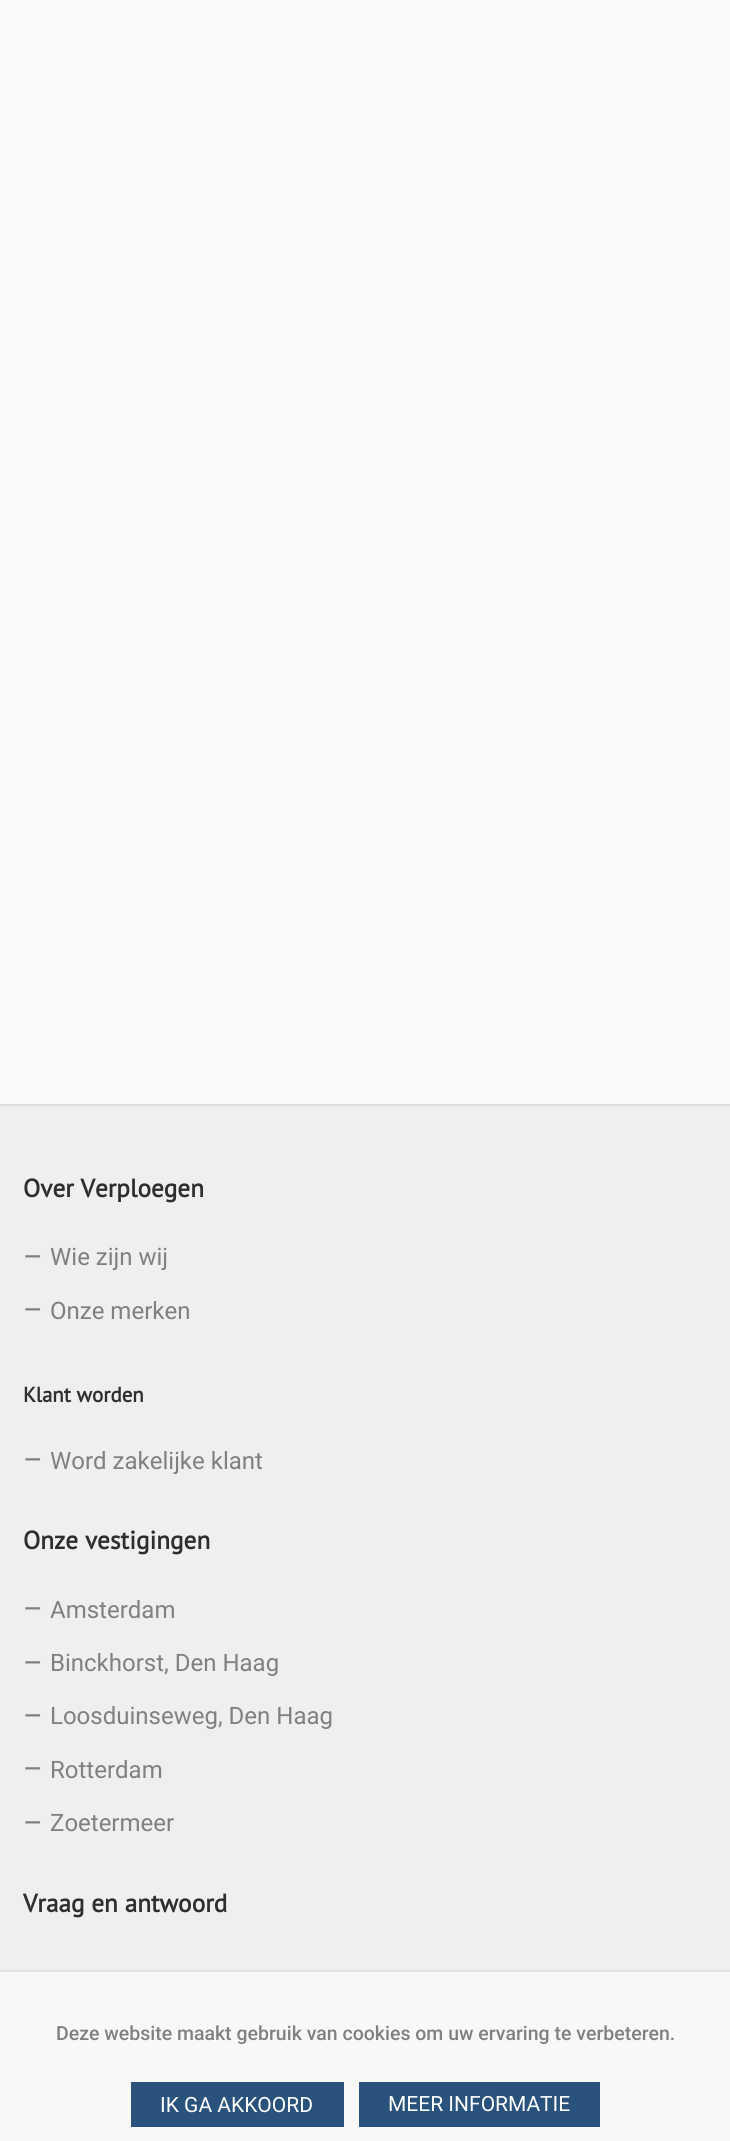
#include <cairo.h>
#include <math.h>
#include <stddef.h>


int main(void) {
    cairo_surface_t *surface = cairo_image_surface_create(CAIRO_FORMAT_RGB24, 730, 2141);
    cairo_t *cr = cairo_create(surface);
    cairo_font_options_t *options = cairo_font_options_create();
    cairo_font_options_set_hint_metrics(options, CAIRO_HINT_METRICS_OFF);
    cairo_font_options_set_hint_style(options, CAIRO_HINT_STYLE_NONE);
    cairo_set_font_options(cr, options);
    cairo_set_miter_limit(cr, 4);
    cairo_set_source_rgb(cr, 0.937, 0.937, 0.937);
    cairo_paint(cr);
    cairo_set_source_rgb(cr, 0.973, 0.98, 0.984);
    cairo_rectangle(cr, 0, 0, 730, 1104);
    cairo_fill(cr);
    cairo_set_source_rgb(cr, 0.871, 0.871, 0.871);
    cairo_rectangle(cr, 0, 1104, 730, 2);
    cairo_fill(cr);
    cairo_select_font_face(cr, "PT Sans", CAIRO_FONT_SLANT_NORMAL, CAIRO_FONT_WEIGHT_BOLD);
    cairo_set_font_size(cr, 25.25);
    cairo_set_source_rgb(cr, 0.18, 0.18, 0.18);
    cairo_move_to(cr, 23, 1197);
    cairo_show_text(cr, "Over Verploegen");
    cairo_select_font_face(cr, "Roboto", CAIRO_FONT_SLANT_NORMAL, CAIRO_FONT_WEIGHT_NORMAL);
    cairo_set_font_size(cr, 30);
    cairo_set_source_rgb(cr, 0.502, 0.502, 0.502);
    cairo_move_to(cr, 23, 1267);
    cairo_show_text(cr, "–");
    cairo_set_font_size(cr, 24);
    cairo_move_to(cr, 50, 1265);
    cairo_show_text(cr, "Wie zijn wij");
    cairo_set_font_size(cr, 30);
    cairo_move_to(cr, 23, 1320);
    cairo_show_text(cr, "–");
    cairo_set_font_size(cr, 24);
    cairo_move_to(cr, 50, 1319);
    cairo_show_text(cr, "Onze merken");
    cairo_select_font_face(cr, "PT Sans", CAIRO_FONT_SLANT_NORMAL, CAIRO_FONT_WEIGHT_BOLD);
    cairo_set_font_size(cr, 21);
    cairo_set_source_rgb(cr, 0.18, 0.18, 0.18);
    cairo_move_to(cr, 23, 1402);
    cairo_show_text(cr, "Klant worden");
    cairo_select_font_face(cr, "Roboto", CAIRO_FONT_SLANT_NORMAL, CAIRO_FONT_WEIGHT_NORMAL);
    cairo_set_font_size(cr, 30);
    cairo_set_source_rgb(cr, 0.502, 0.502, 0.502);
    cairo_move_to(cr, 23, 1470);
    cairo_show_text(cr, "–");
    cairo_set_font_size(cr, 24);
    cairo_move_to(cr, 50, 1469);
    cairo_show_text(cr, "Word zakelijke klant");
    cairo_select_font_face(cr, "PT Sans", CAIRO_FONT_SLANT_NORMAL, CAIRO_FONT_WEIGHT_BOLD);
    cairo_set_font_size(cr, 25.25);
    cairo_set_source_rgb(cr, 0.18, 0.18, 0.18);
    cairo_move_to(cr, 23, 1549);
    cairo_show_text(cr, "Onze vestigingen");
    cairo_select_font_face(cr, "Roboto", CAIRO_FONT_SLANT_NORMAL, CAIRO_FONT_WEIGHT_NORMAL);
    cairo_set_font_size(cr, 30);
    cairo_set_source_rgb(cr, 0.502, 0.502, 0.502);
    cairo_move_to(cr, 23, 1619);
    cairo_show_text(cr, "–");
    cairo_set_font_size(cr, 24);
    cairo_move_to(cr, 50, 1618);
    cairo_show_text(cr, "Amsterdam");
    cairo_set_font_size(cr, 30);
    cairo_move_to(cr, 23, 1673);
    cairo_show_text(cr, "–");
    cairo_set_font_size(cr, 24);
    cairo_move_to(cr, 50, 1671);
    cairo_show_text(cr, "Binckhorst, Den Haag");
    cairo_set_font_size(cr, 30);
    cairo_move_to(cr, 23, 1726);
    cairo_show_text(cr, "–");
    cairo_set_font_size(cr, 24);
    cairo_move_to(cr, 50, 1724);
    cairo_show_text(cr, "Loosduinseweg, Den Haag");
    cairo_set_font_size(cr, 30);
    cairo_move_to(cr, 23, 1779);
    cairo_show_text(cr, "–");
    cairo_set_font_size(cr, 24);
    cairo_move_to(cr, 50, 1778);
    cairo_show_text(cr, "Rotterdam");
    cairo_set_font_size(cr, 30);
    cairo_move_to(cr, 23, 1833);
    cairo_show_text(cr, "–");
    cairo_set_font_size(cr, 24);
    cairo_move_to(cr, 50, 1831);
    cairo_show_text(cr, "Zoetermeer");
    cairo_select_font_face(cr, "PT Sans", CAIRO_FONT_SLANT_NORMAL, CAIRO_FONT_WEIGHT_BOLD);
    cairo_set_font_size(cr, 25.25);
    cairo_set_source_rgb(cr, 0.18, 0.18, 0.18);
    cairo_move_to(cr, 23, 1912);
    cairo_show_text(cr, "Vraag en antwoord");
    cairo_set_source_rgb(cr, 0.969, 0.969, 0.969);
    cairo_rectangle(cr, 0, 1972, 730, 169);
    cairo_fill(cr);
    cairo_set_source_rgb(cr, 0.894, 0.894, 0.894);
    cairo_rectangle(cr, 0, 1970, 730, 2);
    cairo_fill(cr);
    cairo_select_font_face(cr, "Roboto Medium", CAIRO_FONT_SLANT_NORMAL, CAIRO_FONT_WEIGHT_NORMAL);
    cairo_set_font_size(cr, 19.5);
    cairo_set_source_rgb(cr, 0.502, 0.502, 0.502);
    cairo_move_to(cr, 56, 2040);
    cairo_show_text(cr, "Deze website maakt gebruik van cookies om uw ervaring te verbeteren.");
    cairo_set_source_rgb(cr, 0.161, 0.322, 0.486);
    cairo_rectangle(cr, 131, 2082, 213, 45);
    cairo_fill(cr);
    cairo_select_font_face(cr, "Roboto", CAIRO_FONT_SLANT_NORMAL, CAIRO_FONT_WEIGHT_NORMAL);
    cairo_set_font_size(cr, 21);
    cairo_set_source_rgb(cr, 1, 1, 1);
    cairo_move_to(cr, 160, 2112);
    cairo_show_text(cr, "IK GA AKKOORD");
    cairo_set_source_rgb(cr, 0.161, 0.322, 0.486);
    cairo_rectangle(cr, 359, 2082, 241, 45);
    cairo_fill(cr);
    cairo_set_source_rgb(cr, 1, 1, 1);
    cairo_move_to(cr, 388, 2111);
    cairo_show_text(cr, "MEER INFORMATIE");
    cairo_surface_write_to_png(surface, "page.png");
    cairo_font_options_destroy(options);
    cairo_destroy(cr);
    cairo_surface_destroy(surface);
    return 0;
}
